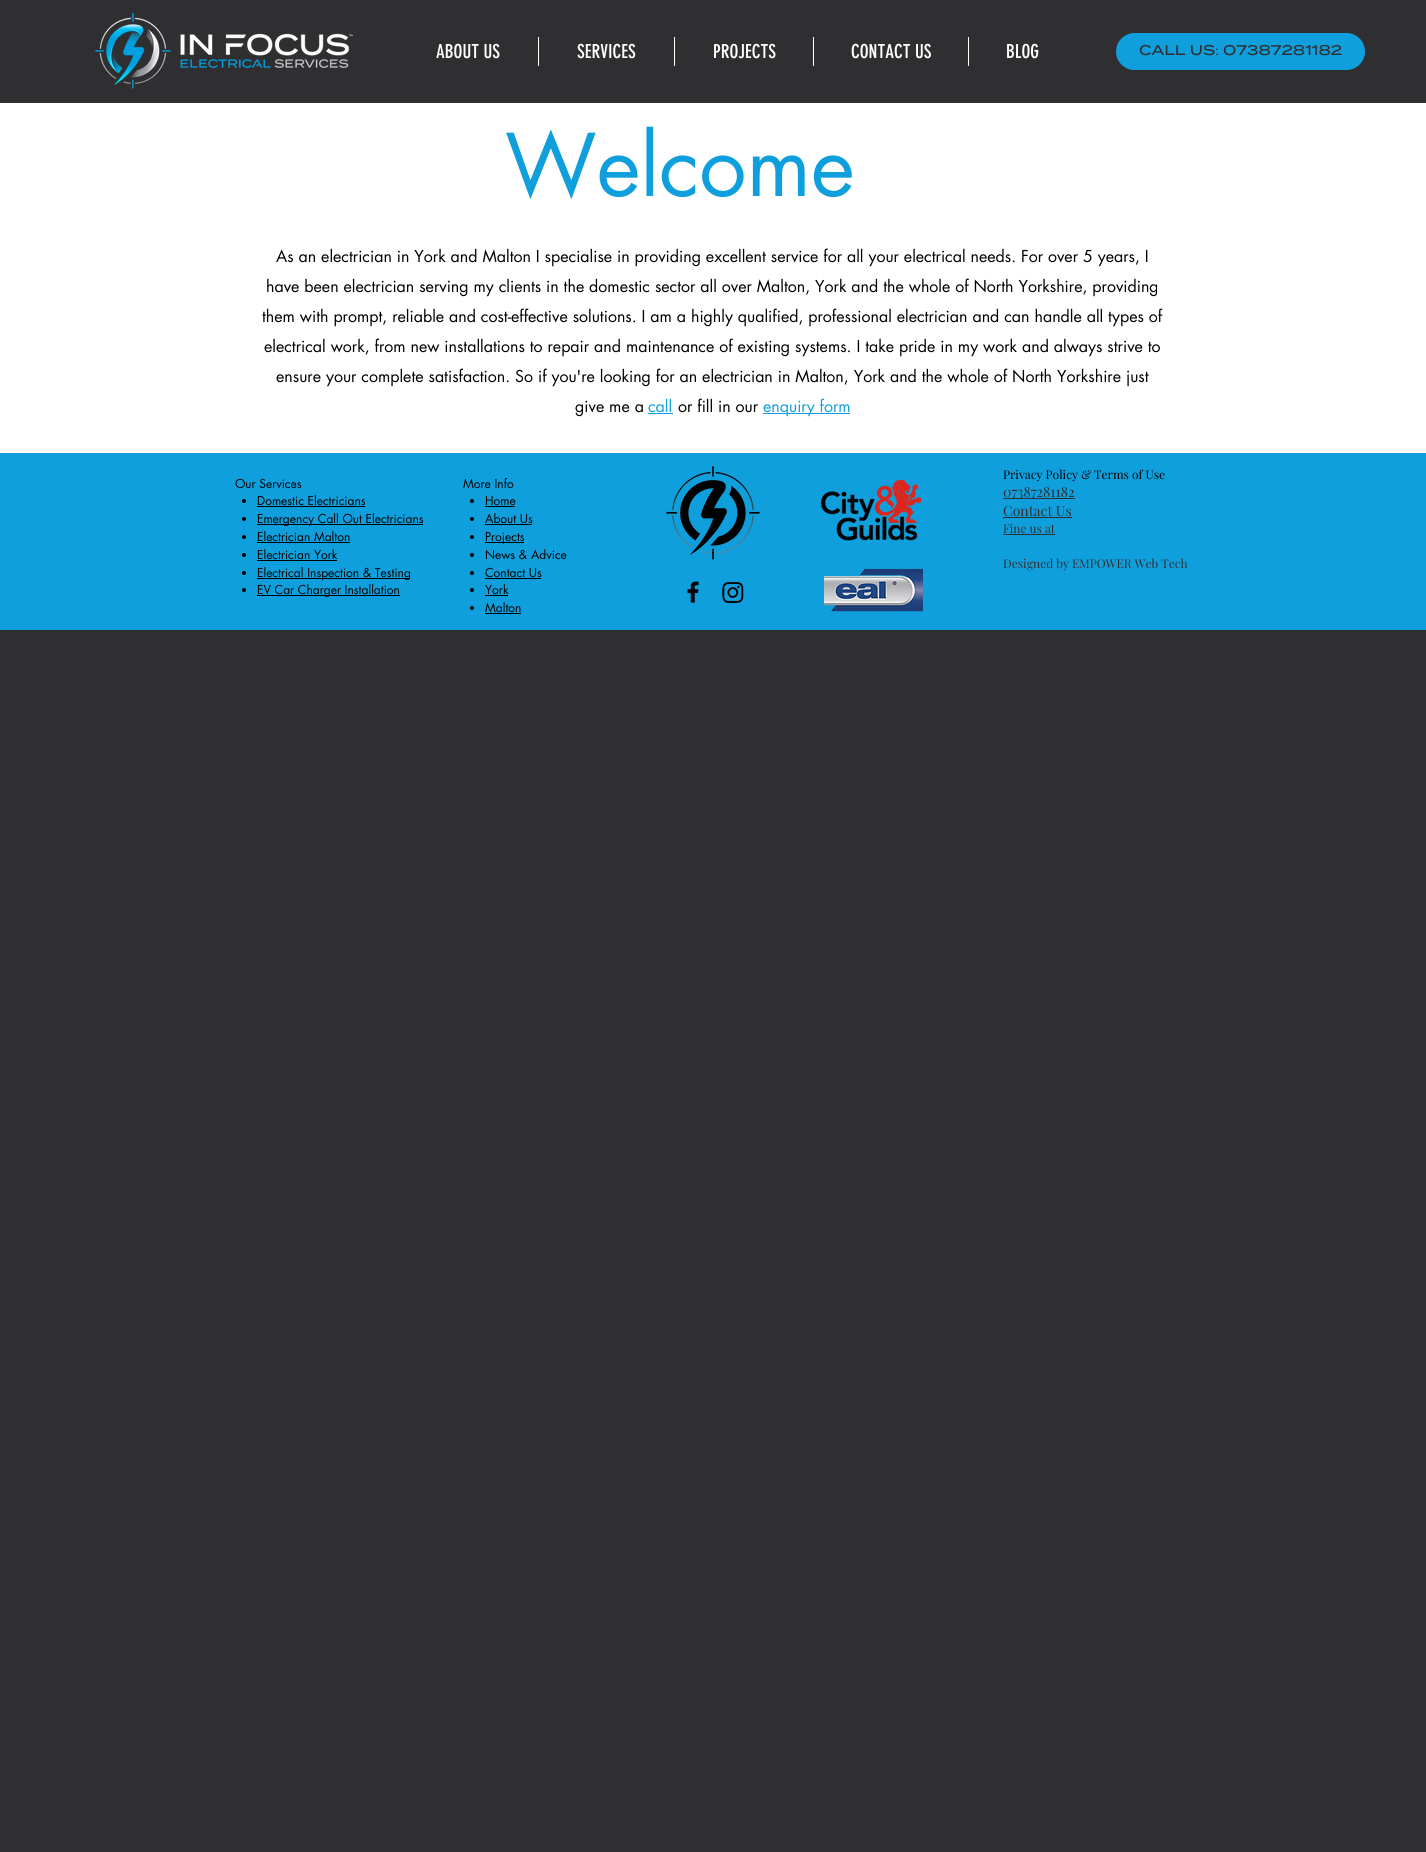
#include <cairo.h>
#include <math.h>
#include <stddef.h>


static void round_rect(cairo_t *cr, double x, double y, double w, double h, double r) {
    cairo_new_sub_path(cr);
    cairo_arc(cr, x + w - r, y + h - r, r, 0, M_PI / 2);
    cairo_arc(cr, x + r, y + h - r, r, M_PI / 2, M_PI);
    cairo_arc(cr, x + r, y + r, r, M_PI, 1.5 * M_PI);
    cairo_arc(cr, x + w - r, y + r, r, 1.5 * M_PI, 2 * M_PI);
    cairo_close_path(cr);
}

static void picture(cairo_t *cr, const char *path, double x, double y, double w, double h) {
    cairo_surface_t *image = cairo_image_surface_create_from_png(path);
    cairo_save(cr);
    cairo_set_source_surface(cr, image, x, y);
    cairo_rectangle(cr, x, y, w, h);
    cairo_fill(cr);
    cairo_restore(cr);
    cairo_surface_destroy(image);
}

int main(void) {
    cairo_surface_t *surface = cairo_image_surface_create(CAIRO_FORMAT_RGB24, 1426, 1852);
    cairo_t *cr = cairo_create(surface);
    cairo_font_options_t *options = cairo_font_options_create();
    cairo_font_options_set_hint_metrics(options, CAIRO_HINT_METRICS_OFF);
    cairo_font_options_set_hint_style(options, CAIRO_HINT_STYLE_NONE);
    cairo_set_font_options(cr, options);
    cairo_set_miter_limit(cr, 4);
    cairo_set_source_rgb(cr, 0.184, 0.18, 0.192);
    cairo_paint(cr);
    picture(cr, "img1.png", 95, 13, 258, 76);
    cairo_select_font_face(cr, "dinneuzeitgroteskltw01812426", CAIRO_FONT_SLANT_NORMAL, CAIRO_FONT_WEIGHT_NORMAL);
    cairo_set_font_size(cr, 19);
    cairo_set_source_rgb(cr, 1, 1, 1);
    cairo_move_to(cr, 436, 58);
    cairo_show_text(cr, "ABOUT US");
    cairo_rectangle(cr, 538, 37, 1, 29);
    cairo_fill(cr);
    cairo_move_to(cr, 577, 58);
    cairo_show_text(cr, "SERVICES");
    cairo_rectangle(cr, 674, 37, 1, 29);
    cairo_fill(cr);
    cairo_move_to(cr, 713, 58);
    cairo_show_text(cr, "PROJECTS");
    cairo_rectangle(cr, 813, 37, 1, 29);
    cairo_fill(cr);
    cairo_move_to(cr, 851, 58);
    cairo_show_text(cr, "CONTACT US");
    cairo_rectangle(cr, 968, 37, 1, 29);
    cairo_fill(cr);
    cairo_move_to(cr, 1006, 58);
    cairo_show_text(cr, "BLOG");
    cairo_set_source_rgb(cr, 0.059, 0.624, 0.863);
    round_rect(cr, 1116, 33, 249, 37, 18.5);
    cairo_fill(cr);
    cairo_select_font_face(cr, "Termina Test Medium", CAIRO_FONT_SLANT_NORMAL, CAIRO_FONT_WEIGHT_NORMAL);
    cairo_set_font_size(cr, 14);
    cairo_set_source_rgb(cr, 0.184, 0.18, 0.192);
    cairo_move_to(cr, 1139, 55);
    cairo_show_text(cr, "CALL US");
    cairo_select_font_face(cr, "Liberation Serif", CAIRO_FONT_SLANT_NORMAL, CAIRO_FONT_WEIGHT_NORMAL);
    cairo_move_to(cr, 1215, 55);
    cairo_show_text(cr, ":");
    cairo_select_font_face(cr, "Termina Test Medium", CAIRO_FONT_SLANT_NORMAL, CAIRO_FONT_WEIGHT_NORMAL);
    cairo_move_to(cr, 1223, 55);
    cairo_show_text(cr, "07387281182");
    cairo_set_source_rgb(cr, 1, 1, 1);
    cairo_rectangle(cr, 0, 103, 1426, 350);
    cairo_fill(cr);
    cairo_select_font_face(cr, "futura", CAIRO_FONT_SLANT_NORMAL, CAIRO_FONT_WEIGHT_NORMAL);
    cairo_set_font_size(cr, 84);
    cairo_set_source_rgb(cr, 0.059, 0.624, 0.863);
    cairo_move_to(cr, 505, 196);
    cairo_show_text(cr, "Welcome");
    cairo_set_font_size(cr, 16);
    cairo_set_source_rgb(cr, 0, 0, 0);
    cairo_move_to(cr, 276, 262);
    cairo_show_text(cr, "As an electrician in York and Malton I specialise in providing excellent service for all your electrical needs. For over 5 years, I");
    cairo_move_to(cr, 266, 292);
    cairo_show_text(cr, "have been electrician serving my clients in the domestic sector all over Malton, York and the whole of North Yorkshire, providing");
    cairo_move_to(cr, 262, 322);
    cairo_show_text(cr, "them with prompt, reliable and cost-effective solutions. I am a highly qualified, professional electrician and can handle all types of");
    cairo_move_to(cr, 264, 352);
    cairo_show_text(cr, "electrical work, from new installations to repair and maintenance of existing systems. I take pride in my work and always strive to");
    cairo_move_to(cr, 276, 382);
    cairo_show_text(cr, "ensure your complete satisfaction. So if you're looking for an electrician in Malton, York and the whole of North Yorkshire just");
    cairo_move_to(cr, 575, 412);
    cairo_show_text(cr, "give me a");
    cairo_set_source_rgb(cr, 0.059, 0.624, 0.863);
    cairo_move_to(cr, 648, 412);
    cairo_show_text(cr, "call");
    cairo_rectangle(cr, 648, 413, 25, 1);
    cairo_fill(cr);
    cairo_set_source_rgb(cr, 0, 0, 0);
    cairo_move_to(cr, 678, 412);
    cairo_show_text(cr, "or fill in our");
    cairo_set_source_rgb(cr, 0.059, 0.624, 0.863);
    cairo_rectangle(cr, 763, 413, 87, 1);
    cairo_fill(cr);
    cairo_move_to(cr, 763, 412);
    cairo_show_text(cr, "enquiry form");
    cairo_rectangle(cr, 0, 453, 1426, 177);
    cairo_fill(cr);
    cairo_set_font_size(cr, 12);
    cairo_set_source_rgb(cr, 0, 0, 0);
    cairo_move_to(cr, 235, 488);
    cairo_show_text(cr, "Our Services");
    cairo_new_path(cr);
    cairo_arc(cr, 244, 501, 2, 0, 2 * M_PI);
    cairo_fill(cr);
    cairo_move_to(cr, 257, 505);
    cairo_show_text(cr, "Domestic Electricians");
    cairo_rectangle(cr, 257, 506, 108, 1);
    cairo_fill(cr);
    cairo_arc(cr, 244, 519, 2, 0, 2 * M_PI);
    cairo_fill(cr);
    cairo_rectangle(cr, 257, 524, 166, 1);
    cairo_fill(cr);
    cairo_move_to(cr, 257, 523);
    cairo_show_text(cr, "Emergency Call Out Electricians");
    cairo_new_path(cr);
    cairo_arc(cr, 244, 537, 2, 0, 2 * M_PI);
    cairo_fill(cr);
    cairo_move_to(cr, 257, 541);
    cairo_show_text(cr, "Electrician Malton");
    cairo_rectangle(cr, 257, 542, 93, 1);
    cairo_fill(cr);
    cairo_arc(cr, 244, 555, 2, 0, 2 * M_PI);
    cairo_fill(cr);
    cairo_move_to(cr, 257, 559);
    cairo_show_text(cr, "Electrician York");
    cairo_rectangle(cr, 257, 560, 80, 1);
    cairo_fill(cr);
    cairo_arc(cr, 244, 573, 2, 0, 2 * M_PI);
    cairo_fill(cr);
    cairo_rectangle(cr, 257, 578, 153, 1);
    cairo_fill(cr);
    cairo_move_to(cr, 257, 577);
    cairo_show_text(cr, "Electrical Inspection & Testing");
    cairo_new_path(cr);
    cairo_arc(cr, 244, 590, 2, 0, 2 * M_PI);
    cairo_fill(cr);
    cairo_rectangle(cr, 257, 595, 143, 1);
    cairo_fill(cr);
    cairo_move_to(cr, 257, 594);
    cairo_show_text(cr, "EV Car Charger Installation");
    cairo_move_to(cr, 463, 488);
    cairo_show_text(cr, "More Info");
    cairo_new_path(cr);
    cairo_arc(cr, 472, 501, 2, 0, 2 * M_PI);
    cairo_fill(cr);
    cairo_move_to(cr, 485, 505);
    cairo_show_text(cr, "Home");
    cairo_rectangle(cr, 485, 506, 30, 1);
    cairo_fill(cr);
    cairo_arc(cr, 472, 519, 2, 0, 2 * M_PI);
    cairo_fill(cr);
    cairo_move_to(cr, 485, 523);
    cairo_show_text(cr, "About Us");
    cairo_rectangle(cr, 485, 524, 47, 1);
    cairo_fill(cr);
    cairo_arc(cr, 472, 537, 2, 0, 2 * M_PI);
    cairo_fill(cr);
    cairo_rectangle(cr, 485, 542, 39, 1);
    cairo_fill(cr);
    cairo_move_to(cr, 485, 541);
    cairo_show_text(cr, "Projects");
    cairo_new_path(cr);
    cairo_arc(cr, 472, 555, 2, 0, 2 * M_PI);
    cairo_fill(cr);
    cairo_move_to(cr, 485, 559);
    cairo_show_text(cr, "News & Advice");
    cairo_new_path(cr);
    cairo_arc(cr, 472, 573, 2, 0, 2 * M_PI);
    cairo_fill(cr);
    cairo_move_to(cr, 485, 577);
    cairo_show_text(cr, "Contact Us");
    cairo_rectangle(cr, 485, 578, 56, 1);
    cairo_fill(cr);
    cairo_arc(cr, 472, 590, 2, 0, 2 * M_PI);
    cairo_fill(cr);
    cairo_move_to(cr, 485, 594);
    cairo_show_text(cr, "York");
    cairo_rectangle(cr, 485, 595, 23, 1);
    cairo_fill(cr);
    cairo_arc(cr, 472, 608, 2, 0, 2 * M_PI);
    cairo_fill(cr);
    cairo_move_to(cr, 485, 612);
    cairo_show_text(cr, "Malton");
    cairo_rectangle(cr, 485, 613, 36, 1);
    cairo_fill(cr);
    picture(cr, "img2.png", 666, 466, 94, 94);
    picture(cr, "img3.png", 820, 479, 102, 62);
    cairo_select_font_face(cr, "Playfair Display", CAIRO_FONT_SLANT_NORMAL, CAIRO_FONT_WEIGHT_NORMAL);
    cairo_move_to(cr, 1003, 479);
    cairo_show_text(cr, "Privacy Policy & Terms of Use");
    cairo_set_source_rgb(cr, 0.184, 0.18, 0.192);
    cairo_rectangle(cr, 1003, 498, 72, 1);
    cairo_fill(cr);
    cairo_set_font_size(cr, 14);
    cairo_move_to(cr, 1003, 497);
    cairo_show_text(cr, "07387281182");
    cairo_move_to(cr, 1003, 516);
    cairo_show_text(cr, "Contact Us");
    cairo_rectangle(cr, 1003, 517, 69, 1);
    cairo_fill(cr);
    cairo_set_font_size(cr, 12);
    cairo_move_to(cr, 1003, 533);
    cairo_show_text(cr, "Fine us at");
    cairo_rectangle(cr, 1003, 534, 52, 1);
    cairo_fill(cr);
    cairo_move_to(cr, 1003, 568);
    cairo_show_text(cr, "Designed by EMPOWER Web Tech");
    picture(cr, "img4.png", 687, 581, 12, 22);
    picture(cr, "img5.png", 722, 581, 22, 23);
    picture(cr, "img6.png", 824, 568, 99, 44);
    cairo_surface_write_to_png(surface, "page.png");
    cairo_font_options_destroy(options);
    cairo_destroy(cr);
    cairo_surface_destroy(surface);
    return 0;
}
